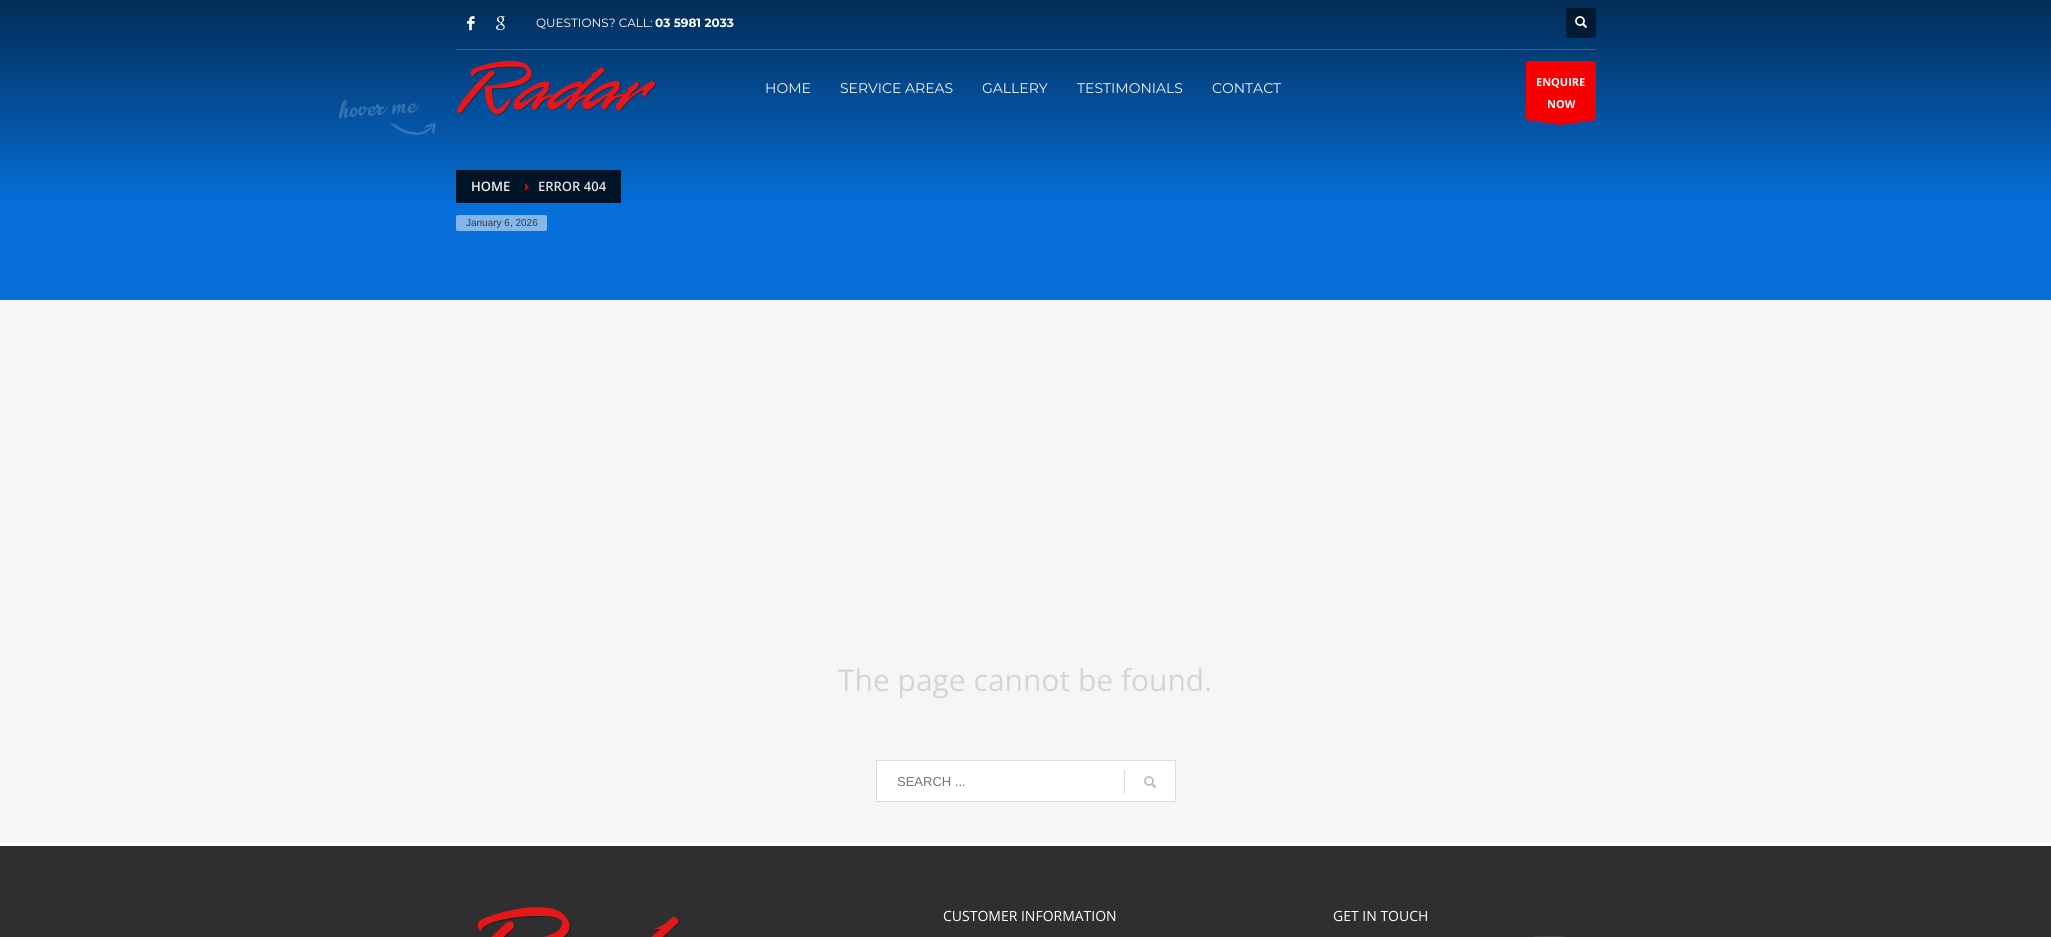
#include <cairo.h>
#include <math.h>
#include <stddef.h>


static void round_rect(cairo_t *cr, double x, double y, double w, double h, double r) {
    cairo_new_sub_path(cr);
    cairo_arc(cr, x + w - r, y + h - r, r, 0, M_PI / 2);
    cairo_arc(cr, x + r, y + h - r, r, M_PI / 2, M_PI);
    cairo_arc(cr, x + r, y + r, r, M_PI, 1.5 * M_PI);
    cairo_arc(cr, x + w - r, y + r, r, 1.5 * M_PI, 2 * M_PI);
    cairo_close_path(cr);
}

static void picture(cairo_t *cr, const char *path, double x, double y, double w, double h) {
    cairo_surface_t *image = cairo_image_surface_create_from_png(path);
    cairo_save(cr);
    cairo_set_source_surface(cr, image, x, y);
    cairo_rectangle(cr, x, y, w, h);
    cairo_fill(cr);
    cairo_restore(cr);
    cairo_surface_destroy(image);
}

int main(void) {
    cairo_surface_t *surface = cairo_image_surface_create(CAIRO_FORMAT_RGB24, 2051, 937);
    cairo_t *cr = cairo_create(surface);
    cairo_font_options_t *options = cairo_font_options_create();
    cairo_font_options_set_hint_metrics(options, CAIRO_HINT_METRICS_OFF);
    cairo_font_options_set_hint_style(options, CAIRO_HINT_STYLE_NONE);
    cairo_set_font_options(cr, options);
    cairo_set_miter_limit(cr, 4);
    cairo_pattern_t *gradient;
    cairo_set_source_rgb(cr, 0.961, 0.961, 0.961);
    cairo_paint(cr);
    cairo_set_source_rgb(cr, 0.024, 0.435, 0.851);
    cairo_rectangle(cr, 0, 0, 2051, 300);
    cairo_fill(cr);
    cairo_set_source_rgb(cr, 0.004, 0.086, 0.169);
    cairo_rectangle(cr, 456, 170, 165, 33);
    cairo_fill(cr);
    cairo_select_font_face(cr, "Open Sans SemiBold", CAIRO_FONT_SLANT_NORMAL, CAIRO_FONT_WEIGHT_NORMAL);
    cairo_set_font_size(cr, 13);
    cairo_set_source_rgb(cr, 1, 1, 1);
    cairo_move_to(cr, 471, 191);
    cairo_show_text(cr, "HOME");
    cairo_set_source_rgb(cr, 0.961, 0, 0.004);
    cairo_new_path(cr);
    cairo_move_to(cr, 525, 191);
    cairo_line_to(cr, 525, 183);
    cairo_line_to(cr, 529, 187);
    cairo_close_path(cr);
    cairo_fill(cr);
    cairo_set_source_rgb(cr, 0.933, 0.933, 0.933);
    cairo_move_to(cr, 538, 191);
    cairo_show_text(cr, "ERROR 404");
    gradient = cairo_pattern_create_linear(1026, 0, 1026, 207);
    cairo_pattern_add_color_stop_rgba(gradient, 0, 0, 0, 0, 0.6);
    cairo_pattern_add_color_stop_rgba(gradient, 1, 0, 0, 0, 0);
    cairo_set_source(cr, gradient);
    cairo_pattern_destroy(gradient);
    cairo_rectangle(cr, 0, 0, 2051, 200);
    cairo_fill(cr);
    picture(cr, "img1.png", 467, 16, 8, 15);
    picture(cr, "img2.png", 496, 16, 9, 15);
    cairo_select_font_face(cr, "Montserrat", CAIRO_FONT_SLANT_NORMAL, CAIRO_FONT_WEIGHT_NORMAL);
    cairo_set_font_size(cr, 12);
    cairo_set_source_rgb(cr, 1, 1, 1);
    cairo_move_to(cr, 536, 27);
    cairo_show_text(cr, "QUESTIONS? CALL:");
    cairo_select_font_face(cr, "Montserrat", CAIRO_FONT_SLANT_NORMAL, CAIRO_FONT_WEIGHT_BOLD);
    cairo_move_to(cr, 655, 27);
    cairo_show_text(cr, "03 5981 2033");
    cairo_set_source_rgba(cr, 0, 0, 0, 0.5);
    round_rect(cr, 1566, 8, 30, 30, 2);
    cairo_fill(cr);
    picture(cr, "img3.png", 1575, 16, 12, 12);
    cairo_set_source_rgb(cr, 0.212, 0.388, 0.573);
    cairo_rectangle(cr, 456, 49, 1140, 1);
    cairo_fill(cr);
    picture(cr, "img4.png", 338, 100, 98, 35);
    picture(cr, "img5.png", 457, 60, 199, 56);
    cairo_select_font_face(cr, "Montserrat", CAIRO_FONT_SLANT_NORMAL, CAIRO_FONT_WEIGHT_NORMAL);
    cairo_set_font_size(cr, 14);
    cairo_set_source_rgb(cr, 0.961, 0.961, 0.961);
    cairo_move_to(cr, 765, 93);
    cairo_show_text(cr, "HOME");
    cairo_move_to(cr, 840, 93);
    cairo_show_text(cr, "SERVICE AREAS");
    cairo_move_to(cr, 982, 93);
    cairo_show_text(cr, "GALLERY");
    cairo_move_to(cr, 1077, 93);
    cairo_show_text(cr, "TESTIMONIALS");
    cairo_move_to(cr, 1212, 93);
    cairo_show_text(cr, "CONTACT");
    cairo_set_source_rgb(cr, 0.961, 0, 0.004);
    round_rect(cr, 1526, 61, 70, 59, 2);
    cairo_fill(cr);
    cairo_select_font_face(cr, "Open Sans", CAIRO_FONT_SLANT_NORMAL, CAIRO_FONT_WEIGHT_BOLD);
    cairo_set_font_size(cr, 11);
    cairo_set_source_rgb(cr, 1, 1, 1);
    cairo_move_to(cr, 1536, 86);
    cairo_show_text(cr, "ENQUIRE");
    cairo_move_to(cr, 1547, 108);
    cairo_show_text(cr, "NOW");
    cairo_set_source_rgb(cr, 0.961, 0, 0.004);
    cairo_set_fill_rule(cr, CAIRO_FILL_RULE_EVEN_ODD);
    cairo_new_path(cr);
    cairo_move_to(cr, 1595, 120);
    cairo_line_to(cr, 1561, 125);
    cairo_line_to(cr, 1526, 120);
    cairo_close_path(cr);
    cairo_fill(cr);
    cairo_set_source_rgb(cr, 0.514, 0.718, 0.925);
    round_rect(cr, 456, 215, 91, 16, 2);
    cairo_fill(cr);
    cairo_select_font_face(cr, "Liberation Sans", CAIRO_FONT_SLANT_NORMAL, CAIRO_FONT_WEIGHT_NORMAL);
    cairo_set_font_size(cr, 10);
    cairo_set_source_rgb(cr, 0.22, 0.22, 0.22);
    cairo_move_to(cr, 466, 226);
    cairo_show_text(cr, "January 6, 2026");
    cairo_select_font_face(cr, "Open Sans", CAIRO_FONT_SLANT_NORMAL, CAIRO_FONT_WEIGHT_NORMAL);
    cairo_set_font_size(cr, 30);
    cairo_set_source_rgb(cr, 0.835, 0.835, 0.835);
    cairo_move_to(cr, 838, 691);
    cairo_show_text(cr, "The page cannot be found.");
    cairo_set_source_rgb(cr, 1, 1, 1);
    cairo_rectangle(cr, 876.5, 760.5, 299, 41);
    cairo_fill_preserve(cr);
    cairo_set_source_rgb(cr, 0.867, 0.867, 0.867);
    cairo_set_line_width(cr, 1);
    cairo_stroke(cr);
    cairo_select_font_face(cr, "Liberation Sans", CAIRO_FONT_SLANT_NORMAL, CAIRO_FONT_WEIGHT_NORMAL);
    cairo_set_font_size(cr, 13);
    cairo_set_source_rgb(cr, 0.459, 0.459, 0.459);
    cairo_move_to(cr, 897, 786);
    cairo_show_text(cr, "SEARCH ...");
    cairo_set_source_rgb(cr, 0.867, 0.867, 0.867);
    cairo_rectangle(cr, 1124, 770, 1, 24);
    cairo_fill(cr);
    picture(cr, "img6.png", 1144, 776, 12, 12);
    cairo_set_source_rgb(cr, 0.184, 0.184, 0.184);
    cairo_rectangle(cr, 0, 846, 2051, 91);
    cairo_fill(cr);
    cairo_set_source_rgb(cr, 1, 1, 1);
    cairo_rectangle(cr, 0, 842, 2051, 4);
    cairo_fill(cr);
    picture(cr, "img7.png", 477, 907, 203, 30);
    cairo_select_font_face(cr, "Open Sans", CAIRO_FONT_SLANT_NORMAL, CAIRO_FONT_WEIGHT_NORMAL);
    cairo_set_font_size(cr, 14);
    cairo_move_to(cr, 943, 921);
    cairo_show_text(cr, "CUSTOMER INFORMATION");
    cairo_move_to(cr, 1333, 921);
    cairo_show_text(cr, "GET IN TOUCH");
    picture(cr, "img8.png", 1533, 936, 31, 1);
    cairo_surface_write_to_png(surface, "page.png");
    cairo_font_options_destroy(options);
    cairo_destroy(cr);
    cairo_surface_destroy(surface);
    return 0;
}
